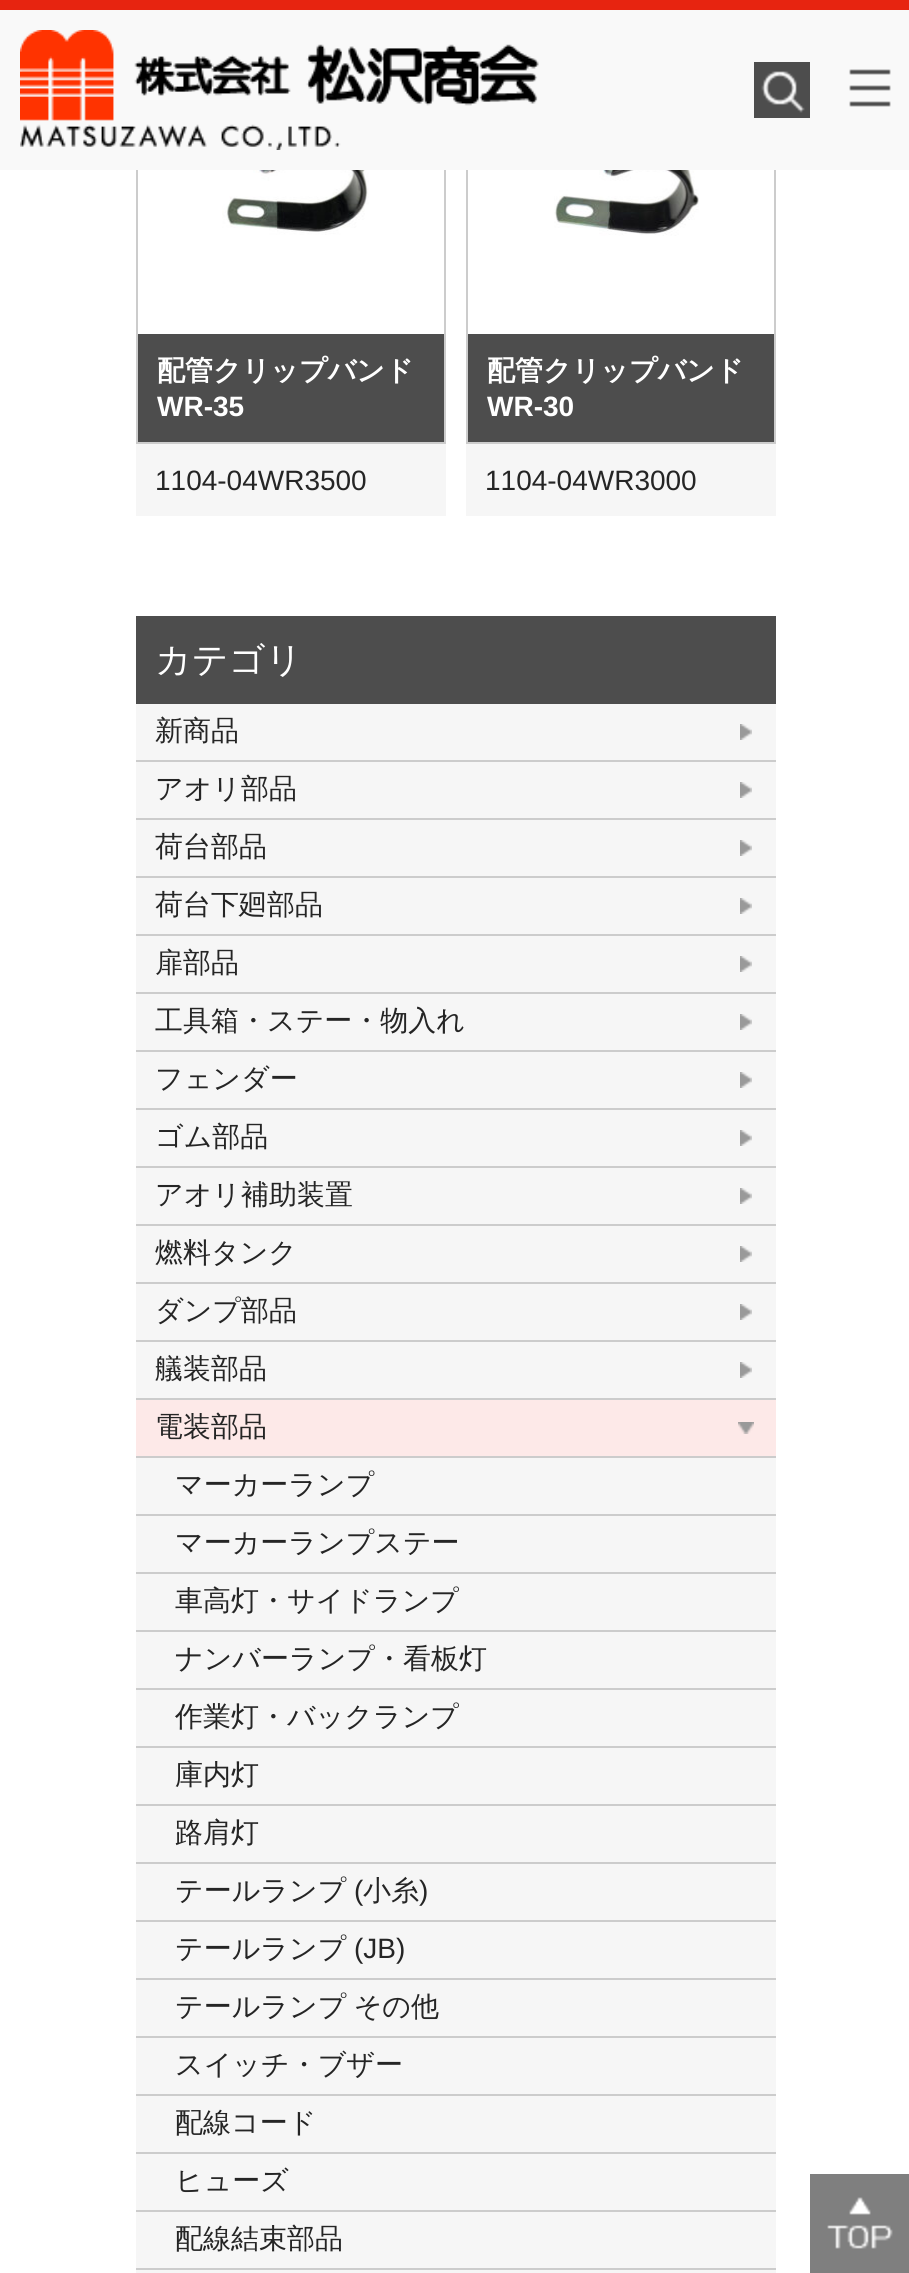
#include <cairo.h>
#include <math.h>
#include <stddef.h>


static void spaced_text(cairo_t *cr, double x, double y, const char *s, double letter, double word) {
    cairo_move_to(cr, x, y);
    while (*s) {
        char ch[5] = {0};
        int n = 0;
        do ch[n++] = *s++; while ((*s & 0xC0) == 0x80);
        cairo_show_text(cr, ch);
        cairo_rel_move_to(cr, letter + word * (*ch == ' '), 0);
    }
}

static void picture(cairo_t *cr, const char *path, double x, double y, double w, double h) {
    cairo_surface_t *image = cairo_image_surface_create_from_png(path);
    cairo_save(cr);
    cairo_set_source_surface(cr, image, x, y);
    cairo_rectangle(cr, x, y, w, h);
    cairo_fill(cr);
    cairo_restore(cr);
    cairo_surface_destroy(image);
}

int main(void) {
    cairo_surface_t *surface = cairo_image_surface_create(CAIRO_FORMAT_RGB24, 909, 2273);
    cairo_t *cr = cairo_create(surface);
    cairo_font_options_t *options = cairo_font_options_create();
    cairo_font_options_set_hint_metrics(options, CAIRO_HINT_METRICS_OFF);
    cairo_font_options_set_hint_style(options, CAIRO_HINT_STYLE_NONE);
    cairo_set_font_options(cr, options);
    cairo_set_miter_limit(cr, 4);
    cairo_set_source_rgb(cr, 1, 1, 1);
    cairo_paint(cr);
    cairo_rectangle(cr, 137, 27, 308, 416);
    cairo_set_source_rgb(cr, 0.8, 0.8, 0.8);
    cairo_stroke(cr);
    cairo_rectangle(cr, 467, 27, 308, 416);
    cairo_stroke(cr);
    cairo_set_source_rgb(cr, 0.973, 0.973, 0.973);
    cairo_rectangle(cr, 0, 10, 909, 160);
    cairo_fill(cr);
    cairo_set_source_rgb(cr, 0.906, 0.141, 0.063);
    cairo_rectangle(cr, 0, 0, 909, 10);
    cairo_fill(cr);
    picture(cr, "img1.png", 20, 30, 519, 120);
    picture(cr, "img2.png", 754, 62, 56, 56);
    picture(cr, "img3.png", 849, 69, 42, 38);
    picture(cr, "img4.png", 222, 170, 147, 65);
    cairo_set_source_rgb(cr, 0.302, 0.302, 0.302);
    cairo_rectangle(cr, 138, 334, 306, 108);
    cairo_fill(cr);
    cairo_select_font_face(cr, "WenQuanYi Zen Hei", CAIRO_FONT_SLANT_NORMAL, CAIRO_FONT_WEIGHT_BOLD);
    cairo_set_font_size(cr, 28);
    cairo_set_source_rgb(cr, 1, 1, 1);
    cairo_move_to(cr, 157, 380);
    cairo_show_text(cr, "配管クリップバンド");
    cairo_select_font_face(cr, "Liberation Sans", CAIRO_FONT_SLANT_NORMAL, CAIRO_FONT_WEIGHT_BOLD);
    cairo_move_to(cr, 157, 416);
    cairo_show_text(cr, "WR-35");
    cairo_set_source_rgb(cr, 0.961, 0.961, 0.961);
    cairo_rectangle(cr, 136, 444, 310, 72);
    cairo_fill(cr);
    cairo_select_font_face(cr, "Liberation Sans", CAIRO_FONT_SLANT_NORMAL, CAIRO_FONT_WEIGHT_NORMAL);
    cairo_set_source_rgb(cr, 0.145, 0.145, 0.145);
    cairo_move_to(cr, 155, 490);
    cairo_show_text(cr, "1104-04WR3500");
    picture(cr, "img5.png", 554, 170, 145, 66);
    cairo_set_source_rgb(cr, 0.302, 0.302, 0.302);
    cairo_rectangle(cr, 468, 334, 306, 108);
    cairo_fill(cr);
    cairo_select_font_face(cr, "WenQuanYi Zen Hei", CAIRO_FONT_SLANT_NORMAL, CAIRO_FONT_WEIGHT_BOLD);
    cairo_set_source_rgb(cr, 1, 1, 1);
    cairo_move_to(cr, 487, 380);
    cairo_show_text(cr, "配管クリップバンド");
    cairo_select_font_face(cr, "Liberation Sans", CAIRO_FONT_SLANT_NORMAL, CAIRO_FONT_WEIGHT_BOLD);
    cairo_move_to(cr, 487, 416);
    cairo_show_text(cr, "WR-30");
    cairo_set_source_rgb(cr, 0.961, 0.961, 0.961);
    cairo_rectangle(cr, 466, 444, 310, 72);
    cairo_fill(cr);
    cairo_select_font_face(cr, "Liberation Sans", CAIRO_FONT_SLANT_NORMAL, CAIRO_FONT_WEIGHT_NORMAL);
    cairo_set_source_rgb(cr, 0.145, 0.145, 0.145);
    cairo_move_to(cr, 485, 490);
    cairo_show_text(cr, "1104-04WR3000");
    cairo_set_source_rgb(cr, 0.302, 0.302, 0.302);
    cairo_rectangle(cr, 136, 616, 640, 88);
    cairo_fill(cr);
    cairo_select_font_face(cr, "WenQuanYi Zen Hei Medium", CAIRO_FONT_SLANT_NORMAL, CAIRO_FONT_WEIGHT_NORMAL);
    cairo_set_font_size(cr, 36);
    cairo_set_source_rgb(cr, 1, 1, 1);
    cairo_move_to(cr, 155, 672);
    cairo_show_text(cr, "カテゴリ");
    cairo_set_source_rgb(cr, 0.961, 0.961, 0.961);
    cairo_rectangle(cr, 136, 704, 640, 56);
    cairo_fill(cr);
    cairo_set_font_size(cr, 28);
    cairo_set_source_rgb(cr, 0.145, 0.145, 0.145);
    cairo_move_to(cr, 155, 740);
    cairo_show_text(cr, "新商品");
    picture(cr, "img6.png", 740, 724, 12, 16);
    cairo_set_source_rgb(cr, 0.961, 0.961, 0.961);
    cairo_rectangle(cr, 136, 762, 640, 56);
    cairo_fill(cr);
    cairo_set_source_rgb(cr, 0.8, 0.8, 0.8);
    cairo_rectangle(cr, 136, 760, 640, 2);
    cairo_fill(cr);
    cairo_set_source_rgb(cr, 0.145, 0.145, 0.145);
    cairo_move_to(cr, 155, 798);
    cairo_show_text(cr, "アオリ部品");
    picture(cr, "img6.png", 740, 782, 12, 16);
    cairo_set_source_rgb(cr, 0.961, 0.961, 0.961);
    cairo_rectangle(cr, 136, 820, 640, 56);
    cairo_fill(cr);
    cairo_set_source_rgb(cr, 0.8, 0.8, 0.8);
    cairo_rectangle(cr, 136, 818, 640, 2);
    cairo_fill(cr);
    cairo_set_source_rgb(cr, 0.145, 0.145, 0.145);
    cairo_move_to(cr, 155, 856);
    cairo_show_text(cr, "荷台部品");
    picture(cr, "img6.png", 740, 840, 12, 16);
    cairo_set_source_rgb(cr, 0.961, 0.961, 0.961);
    cairo_rectangle(cr, 136, 878, 640, 56);
    cairo_fill(cr);
    cairo_set_source_rgb(cr, 0.8, 0.8, 0.8);
    cairo_rectangle(cr, 136, 876, 640, 2);
    cairo_fill(cr);
    cairo_set_source_rgb(cr, 0.145, 0.145, 0.145);
    cairo_move_to(cr, 155, 914);
    cairo_show_text(cr, "荷台下廻部品");
    picture(cr, "img6.png", 740, 898, 12, 16);
    cairo_set_source_rgb(cr, 0.961, 0.961, 0.961);
    cairo_rectangle(cr, 136, 936, 640, 56);
    cairo_fill(cr);
    cairo_set_source_rgb(cr, 0.8, 0.8, 0.8);
    cairo_rectangle(cr, 136, 934, 640, 2);
    cairo_fill(cr);
    cairo_set_source_rgb(cr, 0.145, 0.145, 0.145);
    cairo_move_to(cr, 155, 972);
    cairo_show_text(cr, "扉部品");
    picture(cr, "img6.png", 740, 956, 12, 16);
    cairo_set_source_rgb(cr, 0.961, 0.961, 0.961);
    cairo_rectangle(cr, 136, 994, 640, 56);
    cairo_fill(cr);
    cairo_set_source_rgb(cr, 0.8, 0.8, 0.8);
    cairo_rectangle(cr, 136, 992, 640, 2);
    cairo_fill(cr);
    cairo_set_source_rgb(cr, 0.145, 0.145, 0.145);
    cairo_move_to(cr, 155, 1030);
    cairo_show_text(cr, "工具箱・ステー・物入れ");
    picture(cr, "img6.png", 740, 1014, 12, 16);
    cairo_set_source_rgb(cr, 0.961, 0.961, 0.961);
    cairo_rectangle(cr, 136, 1052, 640, 56);
    cairo_fill(cr);
    cairo_set_source_rgb(cr, 0.8, 0.8, 0.8);
    cairo_rectangle(cr, 136, 1050, 640, 2);
    cairo_fill(cr);
    cairo_set_source_rgb(cr, 0.145, 0.145, 0.145);
    cairo_move_to(cr, 155, 1088);
    cairo_show_text(cr, "フェンダー");
    picture(cr, "img6.png", 740, 1072, 12, 16);
    cairo_set_source_rgb(cr, 0.961, 0.961, 0.961);
    cairo_rectangle(cr, 136, 1110, 640, 56);
    cairo_fill(cr);
    cairo_set_source_rgb(cr, 0.8, 0.8, 0.8);
    cairo_rectangle(cr, 136, 1108, 640, 2);
    cairo_fill(cr);
    cairo_set_source_rgb(cr, 0.145, 0.145, 0.145);
    cairo_move_to(cr, 155, 1146);
    cairo_show_text(cr, "ゴム部品");
    picture(cr, "img6.png", 740, 1130, 12, 16);
    cairo_set_source_rgb(cr, 0.961, 0.961, 0.961);
    cairo_rectangle(cr, 136, 1168, 640, 56);
    cairo_fill(cr);
    cairo_set_source_rgb(cr, 0.8, 0.8, 0.8);
    cairo_rectangle(cr, 136, 1166, 640, 2);
    cairo_fill(cr);
    cairo_set_source_rgb(cr, 0.145, 0.145, 0.145);
    cairo_move_to(cr, 155, 1204);
    cairo_show_text(cr, "アオリ補助装置");
    picture(cr, "img6.png", 740, 1188, 12, 16);
    cairo_set_source_rgb(cr, 0.961, 0.961, 0.961);
    cairo_rectangle(cr, 136, 1226, 640, 56);
    cairo_fill(cr);
    cairo_set_source_rgb(cr, 0.8, 0.8, 0.8);
    cairo_rectangle(cr, 136, 1224, 640, 2);
    cairo_fill(cr);
    cairo_set_source_rgb(cr, 0.145, 0.145, 0.145);
    cairo_move_to(cr, 155, 1262);
    cairo_show_text(cr, "燃料タンク");
    picture(cr, "img6.png", 740, 1246, 12, 16);
    cairo_set_source_rgb(cr, 0.961, 0.961, 0.961);
    cairo_rectangle(cr, 136, 1284, 640, 56);
    cairo_fill(cr);
    cairo_set_source_rgb(cr, 0.8, 0.8, 0.8);
    cairo_rectangle(cr, 136, 1282, 640, 2);
    cairo_fill(cr);
    cairo_set_source_rgb(cr, 0.145, 0.145, 0.145);
    cairo_move_to(cr, 155, 1320);
    cairo_show_text(cr, "ダンプ部品");
    picture(cr, "img6.png", 740, 1304, 12, 16);
    cairo_set_source_rgb(cr, 0.961, 0.961, 0.961);
    cairo_rectangle(cr, 136, 1342, 640, 56);
    cairo_fill(cr);
    cairo_set_source_rgb(cr, 0.8, 0.8, 0.8);
    cairo_rectangle(cr, 136, 1340, 640, 2);
    cairo_fill(cr);
    cairo_set_source_rgb(cr, 0.145, 0.145, 0.145);
    cairo_move_to(cr, 155, 1378);
    cairo_show_text(cr, "艤装部品");
    picture(cr, "img6.png", 740, 1362, 12, 16);
    cairo_set_source_rgb(cr, 0.992, 0.914, 0.91);
    cairo_rectangle(cr, 136, 1400, 640, 56);
    cairo_fill(cr);
    cairo_set_source_rgb(cr, 0.8, 0.8, 0.8);
    cairo_rectangle(cr, 136, 1398, 640, 2);
    cairo_fill(cr);
    cairo_set_source_rgb(cr, 0.145, 0.145, 0.145);
    cairo_move_to(cr, 155, 1436);
    cairo_show_text(cr, "電装部品");
    picture(cr, "img7.png", 738, 1422, 16, 12);
    cairo_set_source_rgb(cr, 0.961, 0.961, 0.961);
    cairo_rectangle(cr, 136, 1458, 640, 56);
    cairo_fill(cr);
    cairo_set_source_rgb(cr, 0.8, 0.8, 0.8);
    cairo_rectangle(cr, 136, 1456, 640, 2);
    cairo_fill(cr);
    cairo_set_source_rgb(cr, 0.145, 0.145, 0.145);
    cairo_move_to(cr, 175, 1494);
    cairo_show_text(cr, "マーカーランプ");
    cairo_set_source_rgb(cr, 0.961, 0.961, 0.961);
    cairo_rectangle(cr, 136, 1516, 640, 56);
    cairo_fill(cr);
    cairo_set_source_rgb(cr, 0.8, 0.8, 0.8);
    cairo_rectangle(cr, 136, 1514, 640, 2);
    cairo_fill(cr);
    cairo_set_source_rgb(cr, 0.145, 0.145, 0.145);
    cairo_move_to(cr, 175, 1552);
    cairo_show_text(cr, "マーカーランプステー");
    cairo_set_source_rgb(cr, 0.961, 0.961, 0.961);
    cairo_rectangle(cr, 136, 1574, 640, 56);
    cairo_fill(cr);
    cairo_set_source_rgb(cr, 0.8, 0.8, 0.8);
    cairo_rectangle(cr, 136, 1572, 640, 2);
    cairo_fill(cr);
    cairo_set_source_rgb(cr, 0.145, 0.145, 0.145);
    cairo_move_to(cr, 175, 1610);
    cairo_show_text(cr, "車高灯・サイドランプ");
    cairo_set_source_rgb(cr, 0.961, 0.961, 0.961);
    cairo_rectangle(cr, 136, 1632, 640, 56);
    cairo_fill(cr);
    cairo_set_source_rgb(cr, 0.8, 0.8, 0.8);
    cairo_rectangle(cr, 136, 1630, 640, 2);
    cairo_fill(cr);
    cairo_set_source_rgb(cr, 0.145, 0.145, 0.145);
    cairo_move_to(cr, 175, 1668);
    cairo_show_text(cr, "ナンバーランプ・看板灯");
    cairo_set_source_rgb(cr, 0.961, 0.961, 0.961);
    cairo_rectangle(cr, 136, 1690, 640, 56);
    cairo_fill(cr);
    cairo_set_source_rgb(cr, 0.8, 0.8, 0.8);
    cairo_rectangle(cr, 136, 1688, 640, 2);
    cairo_fill(cr);
    cairo_set_source_rgb(cr, 0.145, 0.145, 0.145);
    cairo_move_to(cr, 175, 1726);
    cairo_show_text(cr, "作業灯・バックランプ");
    cairo_set_source_rgb(cr, 0.961, 0.961, 0.961);
    cairo_rectangle(cr, 136, 1748, 640, 56);
    cairo_fill(cr);
    cairo_set_source_rgb(cr, 0.8, 0.8, 0.8);
    cairo_rectangle(cr, 136, 1746, 640, 2);
    cairo_fill(cr);
    cairo_set_source_rgb(cr, 0.145, 0.145, 0.145);
    cairo_move_to(cr, 175, 1784);
    cairo_show_text(cr, "庫内灯");
    cairo_set_source_rgb(cr, 0.961, 0.961, 0.961);
    cairo_rectangle(cr, 136, 1806, 640, 56);
    cairo_fill(cr);
    cairo_set_source_rgb(cr, 0.8, 0.8, 0.8);
    cairo_rectangle(cr, 136, 1804, 640, 2);
    cairo_fill(cr);
    cairo_set_source_rgb(cr, 0.145, 0.145, 0.145);
    cairo_move_to(cr, 175, 1842);
    cairo_show_text(cr, "路肩灯");
    cairo_set_source_rgb(cr, 0.961, 0.961, 0.961);
    cairo_rectangle(cr, 136, 1864, 640, 56);
    cairo_fill(cr);
    cairo_set_source_rgb(cr, 0.8, 0.8, 0.8);
    cairo_rectangle(cr, 136, 1862, 640, 2);
    cairo_fill(cr);
    cairo_set_source_rgb(cr, 0.145, 0.145, 0.145);
    cairo_move_to(cr, 175, 1900);
    cairo_show_text(cr, "テールランプ");
    cairo_select_font_face(cr, "Liberation Sans", CAIRO_FONT_SLANT_NORMAL, CAIRO_FONT_WEIGHT_NORMAL);
    cairo_move_to(cr, 354, 1900);
    cairo_show_text(cr, "(");
    cairo_select_font_face(cr, "WenQuanYi Zen Hei Medium", CAIRO_FONT_SLANT_NORMAL, CAIRO_FONT_WEIGHT_NORMAL);
    cairo_move_to(cr, 363, 1900);
    cairo_show_text(cr, "小糸");
    cairo_select_font_face(cr, "Liberation Sans", CAIRO_FONT_SLANT_NORMAL, CAIRO_FONT_WEIGHT_NORMAL);
    cairo_move_to(cr, 419, 1900);
    cairo_show_text(cr, ")");
    cairo_set_source_rgb(cr, 0.961, 0.961, 0.961);
    cairo_rectangle(cr, 136, 1922, 640, 56);
    cairo_fill(cr);
    cairo_set_source_rgb(cr, 0.8, 0.8, 0.8);
    cairo_rectangle(cr, 136, 1920, 640, 2);
    cairo_fill(cr);
    cairo_select_font_face(cr, "WenQuanYi Zen Hei Medium", CAIRO_FONT_SLANT_NORMAL, CAIRO_FONT_WEIGHT_NORMAL);
    cairo_set_source_rgb(cr, 0.145, 0.145, 0.145);
    cairo_move_to(cr, 175, 1958);
    cairo_show_text(cr, "テールランプ");
    cairo_select_font_face(cr, "Liberation Sans", CAIRO_FONT_SLANT_NORMAL, CAIRO_FONT_WEIGHT_NORMAL);
    cairo_move_to(cr, 354, 1958);
    cairo_show_text(cr, "(JB)");
    cairo_set_source_rgb(cr, 0.961, 0.961, 0.961);
    cairo_rectangle(cr, 136, 1980, 640, 56);
    cairo_fill(cr);
    cairo_set_source_rgb(cr, 0.8, 0.8, 0.8);
    cairo_rectangle(cr, 136, 1978, 640, 2);
    cairo_fill(cr);
    cairo_select_font_face(cr, "WenQuanYi Zen Hei Medium", CAIRO_FONT_SLANT_NORMAL, CAIRO_FONT_WEIGHT_NORMAL);
    cairo_set_source_rgb(cr, 0.145, 0.145, 0.145);
    spaced_text(cr, 175, 2016, "テールランプ その他", 0, -1);
    cairo_set_source_rgb(cr, 0.961, 0.961, 0.961);
    cairo_rectangle(cr, 136, 2038, 640, 56);
    cairo_fill(cr);
    cairo_set_source_rgb(cr, 0.8, 0.8, 0.8);
    cairo_rectangle(cr, 136, 2036, 640, 2);
    cairo_fill(cr);
    cairo_set_source_rgb(cr, 0.145, 0.145, 0.145);
    cairo_move_to(cr, 175, 2074);
    cairo_show_text(cr, "スイッチ・ブザー");
    cairo_set_source_rgb(cr, 0.961, 0.961, 0.961);
    cairo_rectangle(cr, 136, 2096, 640, 56);
    cairo_fill(cr);
    cairo_set_source_rgb(cr, 0.8, 0.8, 0.8);
    cairo_rectangle(cr, 136, 2094, 640, 2);
    cairo_fill(cr);
    cairo_set_source_rgb(cr, 0.145, 0.145, 0.145);
    cairo_move_to(cr, 175, 2132);
    cairo_show_text(cr, "配線コード");
    cairo_set_source_rgb(cr, 0.961, 0.961, 0.961);
    cairo_rectangle(cr, 136, 2154, 640, 56);
    cairo_fill(cr);
    cairo_set_source_rgb(cr, 0.8, 0.8, 0.8);
    cairo_rectangle(cr, 136, 2152, 640, 2);
    cairo_fill(cr);
    cairo_set_source_rgb(cr, 0.145, 0.145, 0.145);
    cairo_move_to(cr, 175, 2190);
    cairo_show_text(cr, "ヒューズ");
    cairo_set_source_rgb(cr, 0.961, 0.961, 0.961);
    cairo_rectangle(cr, 136, 2212, 640, 56);
    cairo_fill(cr);
    cairo_set_source_rgb(cr, 0.8, 0.8, 0.8);
    cairo_rectangle(cr, 136, 2210, 640, 2);
    cairo_fill(cr);
    cairo_set_source_rgb(cr, 0.145, 0.145, 0.145);
    cairo_move_to(cr, 175, 2248);
    cairo_show_text(cr, "配線結束部品");
    cairo_set_source_rgb(cr, 0.961, 0.961, 0.961);
    cairo_rectangle(cr, 136, 2270, 640, 3);
    cairo_fill(cr);
    cairo_set_source_rgb(cr, 0.8, 0.8, 0.8);
    cairo_rectangle(cr, 136, 2268, 640, 2);
    cairo_fill(cr);
    picture(cr, "img8.png", 810, 2174, 99, 99);
    cairo_surface_write_to_png(surface, "page.png");
    cairo_font_options_destroy(options);
    cairo_destroy(cr);
    cairo_surface_destroy(surface);
    return 0;
}
